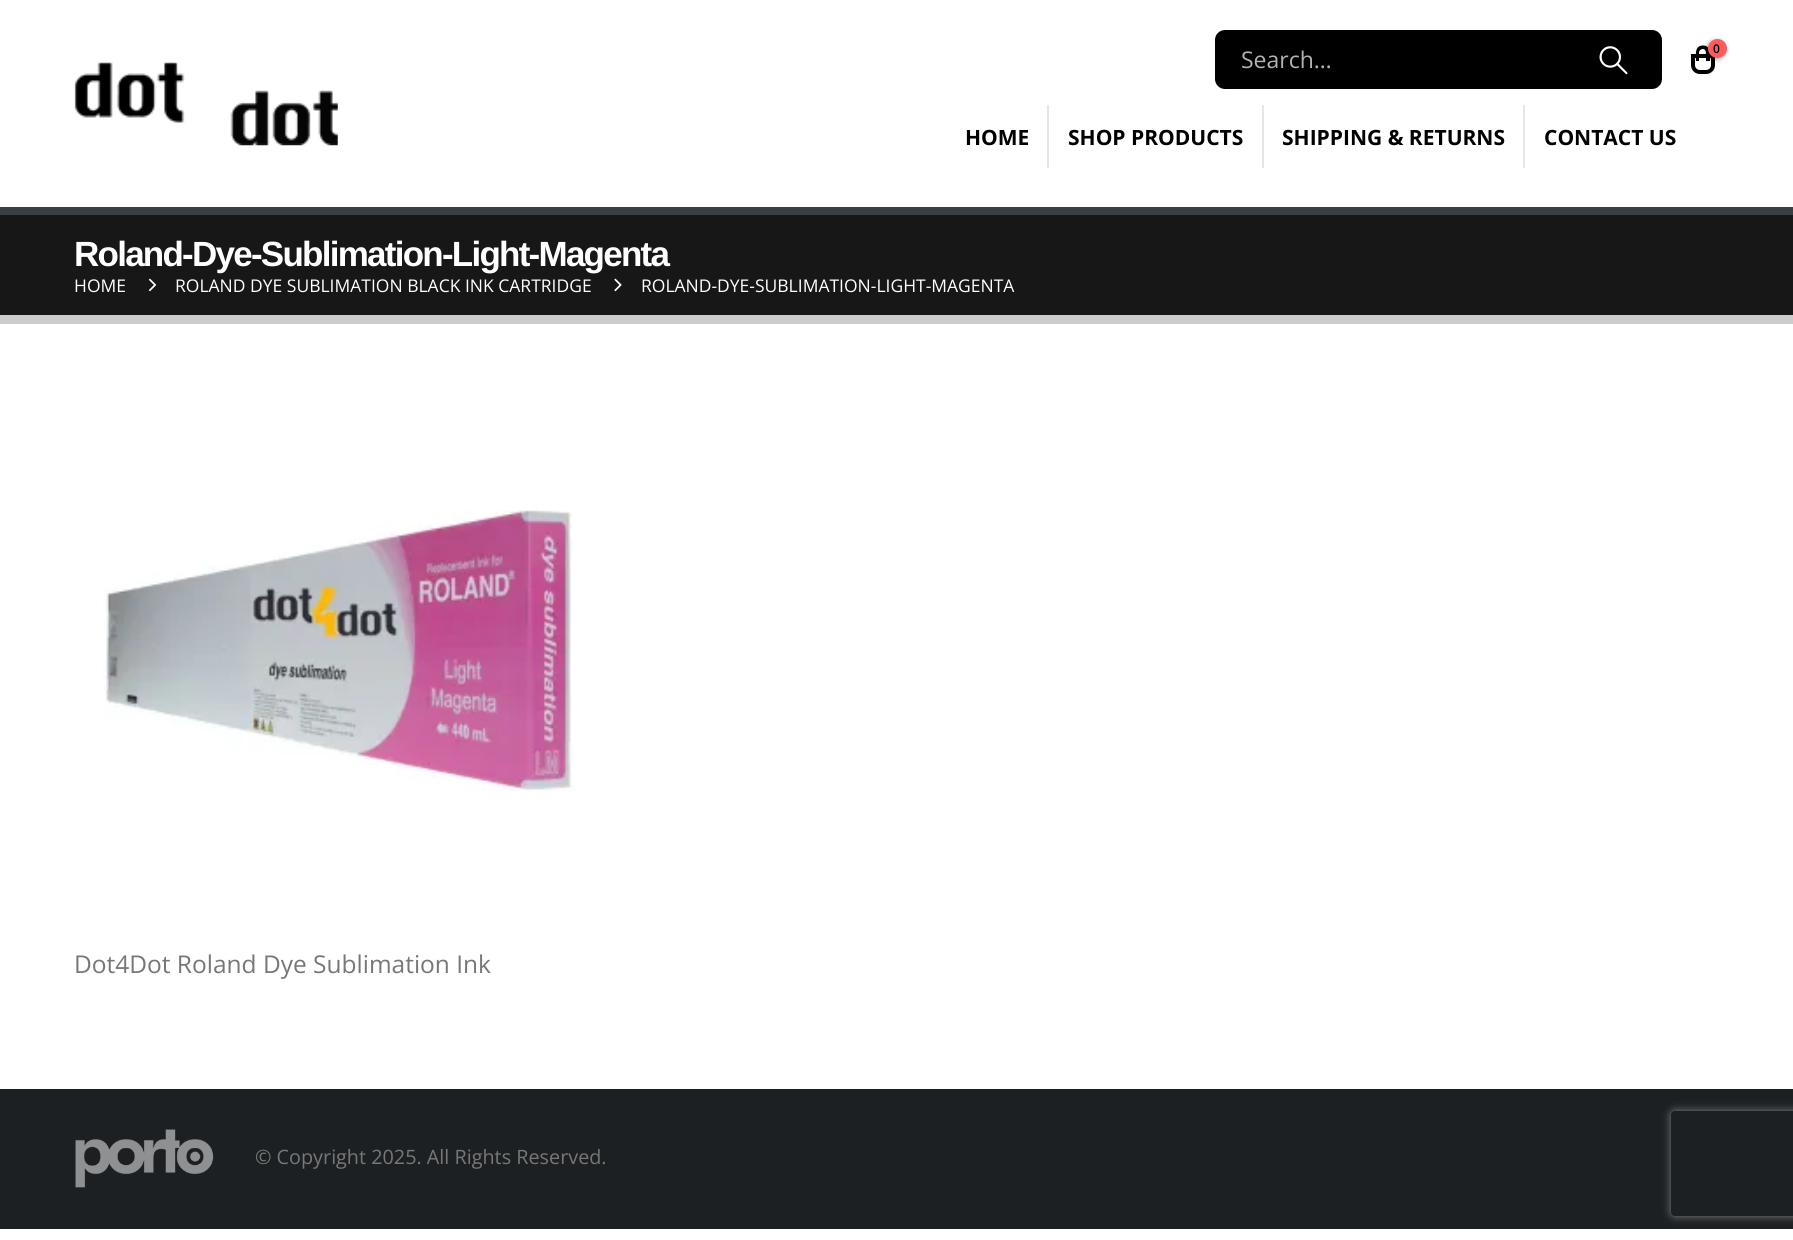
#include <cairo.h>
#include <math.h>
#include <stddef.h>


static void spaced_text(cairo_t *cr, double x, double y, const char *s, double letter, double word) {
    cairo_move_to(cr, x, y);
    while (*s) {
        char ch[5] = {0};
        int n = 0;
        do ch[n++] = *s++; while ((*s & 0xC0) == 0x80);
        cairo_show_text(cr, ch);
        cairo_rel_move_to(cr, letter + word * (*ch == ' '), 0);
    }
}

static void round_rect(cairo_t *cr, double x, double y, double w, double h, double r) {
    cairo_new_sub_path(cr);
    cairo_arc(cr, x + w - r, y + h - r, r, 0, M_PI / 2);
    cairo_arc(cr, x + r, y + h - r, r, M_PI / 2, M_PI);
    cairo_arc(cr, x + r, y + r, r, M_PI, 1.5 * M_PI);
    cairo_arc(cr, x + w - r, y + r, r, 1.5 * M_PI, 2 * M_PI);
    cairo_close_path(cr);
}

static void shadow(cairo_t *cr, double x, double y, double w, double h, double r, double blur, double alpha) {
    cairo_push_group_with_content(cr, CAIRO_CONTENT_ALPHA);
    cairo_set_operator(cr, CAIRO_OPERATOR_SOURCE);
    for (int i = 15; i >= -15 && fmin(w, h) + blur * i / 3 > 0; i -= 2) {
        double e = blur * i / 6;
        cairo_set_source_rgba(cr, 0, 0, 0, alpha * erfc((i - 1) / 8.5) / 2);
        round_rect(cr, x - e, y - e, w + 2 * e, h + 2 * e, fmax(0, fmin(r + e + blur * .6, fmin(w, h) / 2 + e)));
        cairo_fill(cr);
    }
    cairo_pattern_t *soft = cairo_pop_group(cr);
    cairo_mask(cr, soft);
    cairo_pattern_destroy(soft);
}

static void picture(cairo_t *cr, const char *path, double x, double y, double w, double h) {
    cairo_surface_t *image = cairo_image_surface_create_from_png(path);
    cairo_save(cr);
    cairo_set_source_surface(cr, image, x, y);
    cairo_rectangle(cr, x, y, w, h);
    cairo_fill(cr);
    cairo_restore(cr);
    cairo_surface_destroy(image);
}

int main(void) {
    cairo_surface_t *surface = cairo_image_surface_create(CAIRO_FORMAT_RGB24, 1793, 1240);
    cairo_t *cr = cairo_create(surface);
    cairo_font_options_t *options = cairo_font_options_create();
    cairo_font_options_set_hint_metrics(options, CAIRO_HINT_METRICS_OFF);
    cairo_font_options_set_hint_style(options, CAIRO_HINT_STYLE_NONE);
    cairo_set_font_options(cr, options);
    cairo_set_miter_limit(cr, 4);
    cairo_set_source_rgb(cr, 1, 1, 1);
    cairo_paint(cr);
    picture(cr, "img1.png", 74, 62, 264, 84);
    cairo_new_path(cr);
    cairo_move_to(cr, 1693, 56);
    cairo_line_to(cr, 1713, 56);
    cairo_line_to(cr, 1713, 65);
    cairo_curve_to(cr, 1713, 69, 1710, 72, 1706, 72);
    cairo_line_to(cr, 1700, 72);
    cairo_curve_to(cr, 1696, 72, 1693, 69, 1693, 65);
    cairo_close_path(cr);
    cairo_set_source_rgb(cr, 0, 0, 0);
    cairo_set_line_width(cr, 4);
    cairo_stroke(cr);
    cairo_set_fill_rule(cr, CAIRO_FILL_RULE_EVEN_ODD);
    cairo_new_path(cr);
    cairo_move_to(cr, 1703, 45.5);
    cairo_curve_to(cr, 1711.5, 45.5, 1710, 55.5, 1710, 61);
    cairo_line_to(cr, 1696, 61);
    cairo_curve_to(cr, 1696, 55.5, 1694, 45.5, 1703, 45.5);
    cairo_close_path(cr);
    cairo_move_to(cr, 1703, 49);
    cairo_curve_to(cr, 1704.5, 49, 1706, 50.5, 1706, 52.5);
    cairo_line_to(cr, 1706, 61);
    cairo_line_to(cr, 1699, 61);
    cairo_line_to(cr, 1699, 52.5);
    cairo_curve_to(cr, 1699, 50.5, 1701, 49, 1703, 49);
    cairo_close_path(cr);
    cairo_fill(cr);
    cairo_set_source_rgb(cr, 0, 0, 0);
    shadow(cr, 1706, 40, 20, 20, 10, 2, 0.3);
    cairo_set_source_rgb(cr, 1, 0.357, 0.357);
    cairo_arc(cr, 1717.5, 48.5, 9.5, 0, 2 * M_PI);
    cairo_fill(cr);
    cairo_select_font_face(cr, "Open Sans SemiBold", CAIRO_FONT_SLANT_NORMAL, CAIRO_FONT_WEIGHT_NORMAL);
    cairo_set_font_size(cr, 12);
    cairo_set_source_rgb(cr, 0, 0, 0);
    cairo_move_to(cr, 1713, 53);
    cairo_show_text(cr, "0");
    round_rect(cr, 1214, 29, 449, 61, 11);
    cairo_fill_preserve(cr);
    cairo_set_source_rgb(cr, 1, 1, 1);
    cairo_set_line_width(cr, 2);
    cairo_stroke(cr);
    cairo_select_font_face(cr, "Open Sans", CAIRO_FONT_SLANT_NORMAL, CAIRO_FONT_WEIGHT_NORMAL);
    cairo_set_font_size(cr, 23);
    cairo_set_source_rgb(cr, 0.702, 0.702, 0.702);
    cairo_move_to(cr, 1241, 68);
    cairo_show_text(cr, "Search…");
    picture(cr, "img2.png", 1599, 46, 29, 29);
    cairo_set_source_rgb(cr, 0.902, 0.902, 0.902);
    cairo_rectangle(cr, 1047, 105, 2, 63);
    cairo_fill(cr);
    cairo_select_font_face(cr, "Open Sans", CAIRO_FONT_SLANT_NORMAL, CAIRO_FONT_WEIGHT_BOLD);
    cairo_set_font_size(cr, 21);
    cairo_set_source_rgb(cr, 0, 0, 0);
    cairo_move_to(cr, 965, 145);
    cairo_show_text(cr, "HOME");
    cairo_set_source_rgb(cr, 0.902, 0.902, 0.902);
    cairo_rectangle(cr, 1262, 105, 2, 63);
    cairo_fill(cr);
    cairo_set_source_rgb(cr, 0, 0, 0);
    cairo_move_to(cr, 1068, 145);
    cairo_show_text(cr, "SHOP PRODUCTS");
    cairo_set_source_rgb(cr, 0.902, 0.902, 0.902);
    cairo_rectangle(cr, 1523, 105, 2, 63);
    cairo_fill(cr);
    cairo_set_source_rgb(cr, 0, 0, 0);
    cairo_move_to(cr, 1282, 145);
    cairo_show_text(cr, "SHIPPING & RETURNS");
    cairo_move_to(cr, 1544, 145);
    cairo_show_text(cr, "CONTACT US");
    cairo_set_source_rgb(cr, 0.09, 0.09, 0.09);
    cairo_rectangle(cr, 0, 215, 1793, 100);
    cairo_fill(cr);
    cairo_set_source_rgb(cr, 0.22, 0.251, 0.271);
    cairo_rectangle(cr, 0, 207, 1793, 8);
    cairo_fill(cr);
    cairo_set_source_rgb(cr, 0.8, 0.8, 0.8);
    cairo_rectangle(cr, 0, 315, 1793, 9);
    cairo_fill(cr);
    cairo_select_font_face(cr, "Liberation Sans", CAIRO_FONT_SLANT_NORMAL, CAIRO_FONT_WEIGHT_BOLD);
    cairo_set_font_size(cr, 35);
    cairo_set_source_rgb(cr, 1, 1, 1);
    spaced_text(cr, 74, 266, "Roland-Dye-Sublimation-Light-Magenta", -1.75, 0);
    cairo_select_font_face(cr, "Open Sans", CAIRO_FONT_SLANT_NORMAL, CAIRO_FONT_WEIGHT_NORMAL);
    cairo_set_font_size(cr, 17.5);
    cairo_move_to(cr, 74, 292);
    cairo_show_text(cr, "HOME");
    picture(cr, "img3.png", 148, 278, 9, 14);
    cairo_move_to(cr, 175, 292);
    cairo_show_text(cr, "ROLAND DYE SUBLIMATION BLACK INK CARTRIDGE");
    picture(cr, "img4.png", 614, 278, 8, 14);
    cairo_move_to(cr, 641, 292);
    cairo_show_text(cr, "ROLAND-DYE-SUBLIMATION-LIGHT-MAGENTA");
    picture(cr, "img5.png", 103, 510, 470, 282);
    cairo_set_font_size(cr, 24.5);
    cairo_set_source_rgb(cr, 0.467, 0.467, 0.467);
    cairo_move_to(cr, 74, 973);
    cairo_show_text(cr, "Dot4Dot Roland Dye Sublimation Ink");
    cairo_set_source_rgb(cr, 0.11, 0.125, 0.137);
    cairo_rectangle(cr, 0, 1089, 1793, 140);
    cairo_fill(cr);
    picture(cr, "img6.png", 75, 1129, 139, 59);
    cairo_set_font_size(cr, 19.8);
    cairo_set_source_rgb(cr, 0.467, 0.467, 0.467);
    cairo_move_to(cr, 255, 1164);
    cairo_show_text(cr, "© Copyright 2025. All Rights Reserved.");
    cairo_save(cr);
    cairo_new_path(cr);
    cairo_move_to(cr, 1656, 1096);
    cairo_line_to(cr, 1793, 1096);
    cairo_line_to(cr, 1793, 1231);
    cairo_line_to(cr, 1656, 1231);
    cairo_close_path(cr);
    cairo_move_to(cr, 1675, 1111);
    cairo_line_to(cr, 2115, 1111);
    cairo_curve_to(cr, 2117, 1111, 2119, 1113, 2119, 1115);
    cairo_line_to(cr, 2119, 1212);
    cairo_curve_to(cr, 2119, 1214, 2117, 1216, 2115, 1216);
    cairo_line_to(cr, 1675, 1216);
    cairo_curve_to(cr, 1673, 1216, 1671, 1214, 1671, 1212);
    cairo_line_to(cr, 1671, 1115);
    cairo_curve_to(cr, 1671, 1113, 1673, 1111, 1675, 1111);
    cairo_close_path(cr);
    cairo_clip(cr);
    cairo_set_source_rgb(cr, 0.502, 0.502, 0.502);
    shadow(cr, 1671, 1111, 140, 105, 4, 4.5, 1);
    cairo_restore(cr);
    cairo_surface_write_to_png(surface, "page.png");
    cairo_font_options_destroy(options);
    cairo_destroy(cr);
    cairo_surface_destroy(surface);
    return 0;
}
